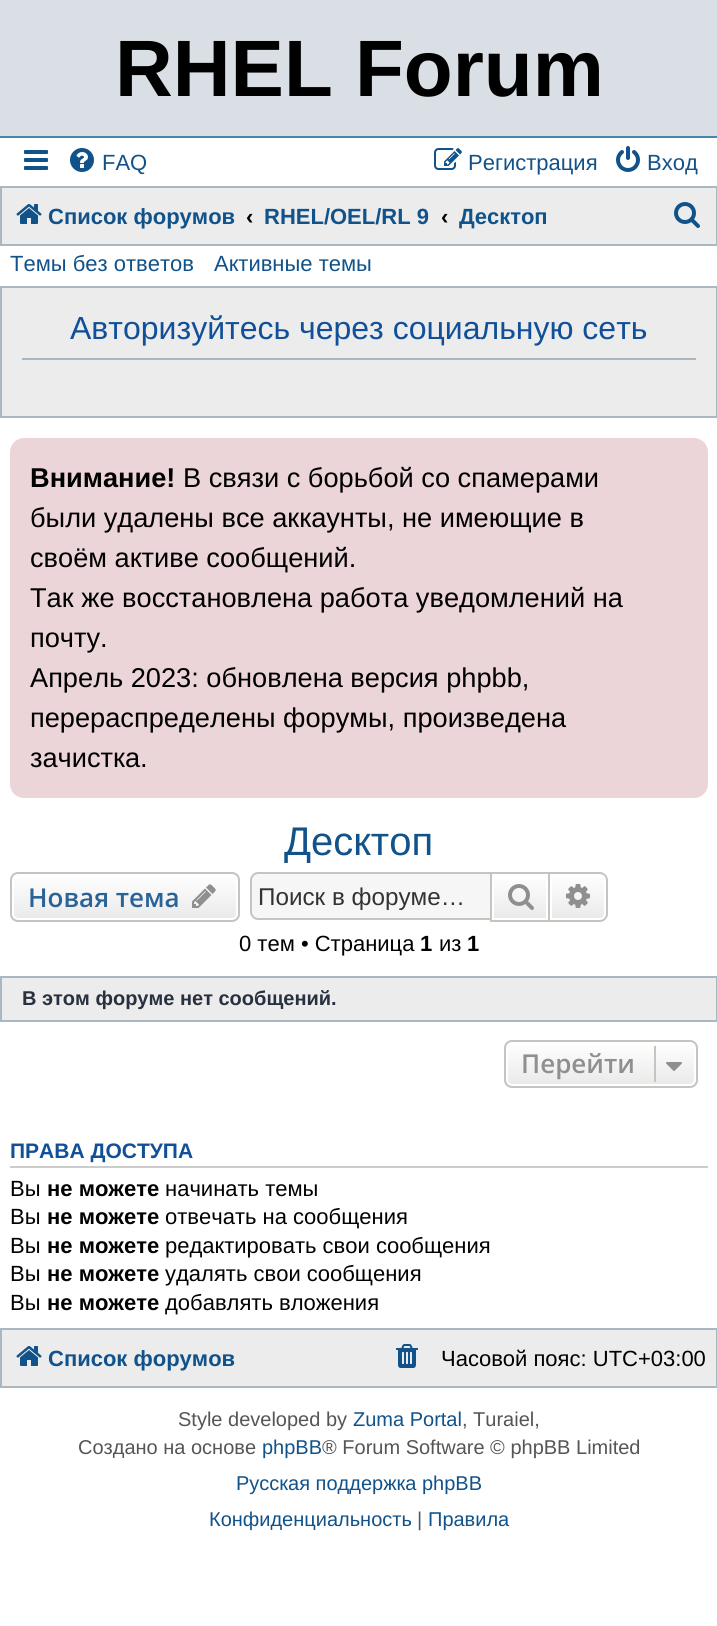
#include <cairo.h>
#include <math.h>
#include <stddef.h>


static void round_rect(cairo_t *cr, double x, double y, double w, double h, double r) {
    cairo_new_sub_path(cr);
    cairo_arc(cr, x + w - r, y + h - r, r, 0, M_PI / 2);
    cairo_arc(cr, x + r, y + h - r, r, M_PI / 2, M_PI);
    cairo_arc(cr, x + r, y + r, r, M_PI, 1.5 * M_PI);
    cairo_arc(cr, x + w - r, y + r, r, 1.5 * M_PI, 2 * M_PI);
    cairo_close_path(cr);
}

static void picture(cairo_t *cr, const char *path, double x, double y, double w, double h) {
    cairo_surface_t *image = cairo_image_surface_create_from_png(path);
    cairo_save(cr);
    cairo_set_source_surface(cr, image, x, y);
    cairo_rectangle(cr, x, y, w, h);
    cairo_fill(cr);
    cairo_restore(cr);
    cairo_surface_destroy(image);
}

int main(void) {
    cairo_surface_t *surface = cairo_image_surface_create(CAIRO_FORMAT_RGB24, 717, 1626);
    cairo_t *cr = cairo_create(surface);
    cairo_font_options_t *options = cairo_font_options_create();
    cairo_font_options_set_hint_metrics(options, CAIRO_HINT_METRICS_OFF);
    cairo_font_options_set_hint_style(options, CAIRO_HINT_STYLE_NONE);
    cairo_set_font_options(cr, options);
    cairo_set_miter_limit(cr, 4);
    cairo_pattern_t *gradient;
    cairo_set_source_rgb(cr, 1, 1, 1);
    cairo_paint(cr);
    cairo_set_source_rgb(cr, 0.851, 0.875, 0.894);
    cairo_rectangle(cr, 0, 0, 717, 136);
    cairo_fill(cr);
    cairo_set_source_rgb(cr, 0.278, 0.529, 0.655);
    cairo_rectangle(cr, 0, 136, 717, 2);
    cairo_fill(cr);
    cairo_select_font_face(cr, "Liberation Sans", CAIRO_FONT_SLANT_NORMAL, CAIRO_FONT_WEIGHT_BOLD);
    cairo_set_font_size(cr, 80);
    cairo_set_source_rgb(cr, 0, 0, 0);
    cairo_move_to(cr, 115, 96);
    cairo_show_text(cr, "RHEL Forum");
    picture(cr, "img1.png", 24, 150, 24, 20);
    picture(cr, "img2.png", 70, 148, 24, 24);
    cairo_select_font_face(cr, "Liberation Sans", CAIRO_FONT_SLANT_NORMAL, CAIRO_FONT_WEIGHT_NORMAL);
    cairo_set_font_size(cr, 22);
    cairo_set_source_rgb(cr, 0.063, 0.322, 0.537);
    cairo_move_to(cr, 102, 170);
    cairo_show_text(cr, "FAQ");
    picture(cr, "img3.png", 434, 148, 28, 22);
    cairo_move_to(cr, 468, 170);
    cairo_show_text(cr, "Регистрация");
    picture(cr, "img4.png", 616, 146, 24, 26);
    cairo_move_to(cr, 647, 170);
    cairo_show_text(cr, "Вход");
    cairo_set_source_rgb(cr, 0.925, 0.925, 0.925);
    cairo_rectangle(cr, 1, 187, 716, 58);
    cairo_fill_preserve(cr);
    cairo_set_source_rgb(cr, 0.663, 0.722, 0.761);
    cairo_stroke(cr);
    picture(cr, "img5.png", 16, 204, 26, 20);
    cairo_select_font_face(cr, "Liberation Sans", CAIRO_FONT_SLANT_NORMAL, CAIRO_FONT_WEIGHT_BOLD);
    cairo_set_source_rgb(cr, 0.063, 0.322, 0.537);
    cairo_move_to(cr, 48, 224);
    cairo_show_text(cr, "Список форумов");
    cairo_set_source_rgb(cr, 0, 0, 0);
    cairo_move_to(cr, 246, 224);
    cairo_show_text(cr, "‹");
    cairo_set_source_rgb(cr, 0.063, 0.322, 0.537);
    cairo_move_to(cr, 264, 224);
    cairo_show_text(cr, "RHEL/OEL/RL 9");
    cairo_set_source_rgb(cr, 0, 0, 0);
    cairo_move_to(cr, 441, 224);
    cairo_show_text(cr, "‹");
    cairo_set_source_rgb(cr, 0.063, 0.322, 0.537);
    cairo_move_to(cr, 459, 224);
    cairo_show_text(cr, "Десктоп");
    picture(cr, "img6.png", 674, 202, 26, 26);
    cairo_select_font_face(cr, "Liberation Sans", CAIRO_FONT_SLANT_NORMAL, CAIRO_FONT_WEIGHT_NORMAL);
    cairo_move_to(cr, 10, 271);
    cairo_show_text(cr, "Темы без ответов");
    cairo_move_to(cr, 214, 271);
    cairo_show_text(cr, "Активные темы");
    cairo_set_source_rgb(cr, 0.925, 0.925, 0.925);
    cairo_rectangle(cr, 1, 287, 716, 130);
    cairo_fill_preserve(cr);
    cairo_set_source_rgb(cr, 0.663, 0.722, 0.761);
    cairo_stroke(cr);
    cairo_rectangle(cr, 22, 358, 674, 2);
    cairo_fill(cr);
    cairo_set_font_size(cr, 32);
    cairo_set_source_rgb(cr, 0.067, 0.314, 0.596);
    cairo_move_to(cr, 70, 339);
    cairo_show_text(cr, "Авторизуйтесь через социальную сеть");
    cairo_set_source_rgb(cr, 0.925, 0.835, 0.847);
    round_rect(cr, 10, 438, 698, 360, 14);
    cairo_fill(cr);
    cairo_select_font_face(cr, "Liberation Sans", CAIRO_FONT_SLANT_NORMAL, CAIRO_FONT_WEIGHT_BOLD);
    cairo_set_font_size(cr, 27.2);
    cairo_set_source_rgb(cr, 0, 0, 0);
    cairo_move_to(cr, 30, 487);
    cairo_show_text(cr, "Внимание!");
    cairo_select_font_face(cr, "Liberation Sans", CAIRO_FONT_SLANT_NORMAL, CAIRO_FONT_WEIGHT_NORMAL);
    cairo_move_to(cr, 183, 487);
    cairo_show_text(cr, "В связи с борьбой со спамерами");
    cairo_move_to(cr, 30, 527);
    cairo_show_text(cr, "были удалены все аккаунты, не имеющие в");
    cairo_move_to(cr, 30, 567);
    cairo_show_text(cr, "своём активе сообщений.");
    cairo_move_to(cr, 30, 607);
    cairo_show_text(cr, "Так же восстановлена работа уведомлений на");
    cairo_move_to(cr, 30, 647);
    cairo_show_text(cr, "почту.");
    cairo_move_to(cr, 30, 687);
    cairo_show_text(cr, "Апрель 2023: обновлена версия phpbb,");
    cairo_move_to(cr, 30, 727);
    cairo_show_text(cr, "перераспределены форумы, произведена");
    cairo_move_to(cr, 30, 767);
    cairo_show_text(cr, "зачистка.");
    cairo_set_font_size(cr, 40);
    cairo_set_source_rgb(cr, 0.063, 0.322, 0.537);
    cairo_move_to(cr, 284, 855);
    cairo_show_text(cr, "Десктоп");
    cairo_save(cr);
    round_rect(cr, 10, 872, 230, 50, 8);
    cairo_clip(cr);
    gradient = cairo_pattern_create_linear(125, 874, 125, 920);
    cairo_pattern_add_color_stop_rgba(gradient, 0, 1, 1, 1, 1);
    cairo_pattern_add_color_stop_rgba(gradient, 1, 0.914, 0.914, 0.914, 1);
    cairo_set_source(cr, gradient);
    cairo_pattern_destroy(gradient);
    cairo_rectangle(cr, 10, 874, 230, 46);
    cairo_fill(cr);
    cairo_restore(cr);
    round_rect(cr, 13, 875, 224, 44, 5);
    cairo_set_source_rgb(cr, 1, 1, 1);
    cairo_stroke(cr);
    round_rect(cr, 11, 873, 228, 48, 7);
    cairo_set_source_rgb(cr, 0.78, 0.765, 0.749);
    cairo_stroke(cr);
    cairo_select_font_face(cr, "Open Sans SemiBold", CAIRO_FONT_SLANT_NORMAL, CAIRO_FONT_WEIGHT_NORMAL);
    cairo_set_font_size(cr, 26);
    cairo_set_source_rgb(cr, 0.165, 0.392, 0.588);
    cairo_move_to(cr, 28, 907);
    cairo_show_text(cr, "Новая тема");
    picture(cr, "img7.png", 192, 884, 24, 24);
    cairo_set_source_rgb(cr, 0.961, 0.961, 0.961);
    cairo_new_path(cr);
    cairo_move_to(cr, 258, 874);
    cairo_line_to(cr, 490, 874);
    cairo_line_to(cr, 490, 918);
    cairo_line_to(cr, 258, 918);
    cairo_curve_to(cr, 254.5, 918, 252, 915.5, 252, 912);
    cairo_line_to(cr, 252, 880);
    cairo_curve_to(cr, 252, 876.5, 254.5, 874, 258, 874);
    cairo_close_path(cr);
    cairo_fill(cr);
    cairo_set_source_rgb(cr, 0.78, 0.765, 0.749);
    cairo_set_fill_rule(cr, CAIRO_FILL_RULE_EVEN_ODD);
    cairo_new_path(cr);
    cairo_move_to(cr, 258, 872);
    cairo_line_to(cr, 490, 872);
    cairo_line_to(cr, 490, 920);
    cairo_line_to(cr, 258, 920);
    cairo_curve_to(cr, 254, 920, 250, 916, 250, 912);
    cairo_line_to(cr, 250, 880);
    cairo_curve_to(cr, 250, 876, 254, 872, 258, 872);
    cairo_close_path(cr);
    cairo_move_to(cr, 258, 874);
    cairo_line_to(cr, 490, 874);
    cairo_line_to(cr, 490, 918);
    cairo_line_to(cr, 258, 918);
    cairo_curve_to(cr, 255, 918, 252, 915, 252, 912);
    cairo_line_to(cr, 252, 880);
    cairo_curve_to(cr, 252, 877, 255, 874, 258, 874);
    cairo_close_path(cr);
    cairo_fill(cr);
    cairo_select_font_face(cr, "Liberation Sans", CAIRO_FONT_SLANT_NORMAL, CAIRO_FONT_WEIGHT_NORMAL);
    cairo_set_font_size(cr, 24.25);
    cairo_set_source_rgb(cr, 0.2, 0.2, 0.2);
    cairo_move_to(cr, 258, 905);
    cairo_show_text(cr, "Поиск в форуме…");
    gradient = cairo_pattern_create_linear(520, 874, 520, 920);
    cairo_pattern_add_color_stop_rgba(gradient, 0, 1, 1, 1, 1);
    cairo_pattern_add_color_stop_rgba(gradient, 1, 0.914, 0.914, 0.914, 1);
    cairo_set_source(cr, gradient);
    cairo_pattern_destroy(gradient);
    cairo_rectangle(cr, 494, 879, 52, 39);
    cairo_fill(cr);
    cairo_rectangle(cr, 491, 873, 58, 48);
    cairo_set_source_rgb(cr, 0.78, 0.765, 0.749);
    cairo_stroke(cr);
    picture(cr, "img8.png", 508, 884, 26, 26);
    gradient = cairo_pattern_create_linear(578, 874, 578, 920);
    cairo_pattern_add_color_stop_rgba(gradient, 0, 1, 1, 1, 1);
    cairo_pattern_add_color_stop_rgba(gradient, 1, 0.914, 0.914, 0.914, 1);
    cairo_set_source(cr, gradient);
    cairo_pattern_destroy(gradient);
    cairo_new_path(cr);
    cairo_move_to(cr, 551, 875);
    cairo_line_to(cr, 600, 875);
    cairo_curve_to(cr, 603, 875, 605, 877, 605, 880);
    cairo_line_to(cr, 605, 914);
    cairo_curve_to(cr, 605, 917, 603, 919, 600, 919);
    cairo_line_to(cr, 551, 919);
    cairo_close_path(cr);
    cairo_fill_preserve(cr);
    cairo_set_source_rgb(cr, 1, 1, 1);
    cairo_stroke(cr);
    cairo_set_source_rgb(cr, 0.78, 0.765, 0.749);
    cairo_new_path(cr);
    cairo_move_to(cr, 550, 872);
    cairo_line_to(cr, 600, 872);
    cairo_curve_to(cr, 604, 872, 608, 876, 608, 880);
    cairo_line_to(cr, 608, 914);
    cairo_curve_to(cr, 608, 918, 604, 922, 600, 922);
    cairo_line_to(cr, 550, 922);
    cairo_close_path(cr);
    cairo_move_to(cr, 550, 874);
    cairo_line_to(cr, 600, 874);
    cairo_curve_to(cr, 603, 874, 606, 877, 606, 880);
    cairo_line_to(cr, 606, 914);
    cairo_curve_to(cr, 606, 917, 603, 920, 600, 920);
    cairo_line_to(cr, 550, 920);
    cairo_close_path(cr);
    cairo_fill(cr);
    picture(cr, "img9.png", 566, 884, 24, 24);
    cairo_set_font_size(cr, 22);
    cairo_set_source_rgb(cr, 0, 0, 0);
    cairo_move_to(cr, 239, 951);
    cairo_show_text(cr, "0 тем • Страница");
    cairo_select_font_face(cr, "Liberation Sans", CAIRO_FONT_SLANT_NORMAL, CAIRO_FONT_WEIGHT_BOLD);
    cairo_move_to(cr, 420, 951);
    cairo_show_text(cr, "1");
    cairo_select_font_face(cr, "Liberation Sans", CAIRO_FONT_SLANT_NORMAL, CAIRO_FONT_WEIGHT_NORMAL);
    cairo_move_to(cr, 439, 951);
    cairo_show_text(cr, "из");
    cairo_select_font_face(cr, "Liberation Sans", CAIRO_FONT_SLANT_NORMAL, CAIRO_FONT_WEIGHT_BOLD);
    cairo_move_to(cr, 467, 951);
    cairo_show_text(cr, "1");
    cairo_set_source_rgb(cr, 0.925, 0.925, 0.925);
    cairo_rectangle(cr, 1, 977, 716, 44);
    cairo_fill_preserve(cr);
    cairo_set_source_rgb(cr, 0.663, 0.722, 0.761);
    cairo_stroke(cr);
    cairo_set_font_size(cr, 20);
    cairo_set_source_rgb(cr, 0.157, 0.192, 0.247);
    cairo_move_to(cr, 22, 1005);
    cairo_show_text(cr, "В этом форуме нет сообщений.");
    cairo_save(cr);
    cairo_set_fill_rule(cr, CAIRO_FILL_RULE_WINDING);
    round_rect(cr, 504, 1040, 194, 48, 8);
    cairo_clip(cr);
    gradient = cairo_pattern_create_linear(601, 1042, 601, 1086);
    cairo_pattern_add_color_stop_rgba(gradient, 0, 1, 1, 1, 1);
    cairo_pattern_add_color_stop_rgba(gradient, 1, 0.914, 0.914, 0.914, 1);
    cairo_set_source(cr, gradient);
    cairo_pattern_destroy(gradient);
    cairo_rectangle(cr, 504, 1042, 194, 44);
    cairo_fill(cr);
    cairo_restore(cr);
    round_rect(cr, 507, 1043, 188, 42, 5);
    cairo_set_source_rgb(cr, 1, 1, 1);
    cairo_stroke(cr);
    round_rect(cr, 505, 1041, 192, 46, 7);
    cairo_set_source_rgb(cr, 0.78, 0.765, 0.749);
    cairo_stroke(cr);
    cairo_select_font_face(cr, "Open Sans SemiBold", CAIRO_FONT_SLANT_NORMAL, CAIRO_FONT_WEIGHT_NORMAL);
    cairo_set_font_size(cr, 26);
    cairo_set_source_rgb(cr, 0.561, 0.561, 0.561);
    cairo_move_to(cr, 521, 1073);
    cairo_show_text(cr, "Перейти");
    cairo_set_source_rgb(cr, 0.78, 0.765, 0.749);
    cairo_rectangle(cr, 654, 1046, 2, 36);
    cairo_fill(cr);
    picture(cr, "img10.png", 666, 1062, 16, 9);
    cairo_set_source_rgb(cr, 0.8, 0.8, 0.8);
    cairo_rectangle(cr, 10, 1166, 698, 2);
    cairo_fill(cr);
    cairo_select_font_face(cr, "Liberation Sans", CAIRO_FONT_SLANT_NORMAL, CAIRO_FONT_WEIGHT_BOLD);
    cairo_set_font_size(cr, 21);
    cairo_set_source_rgb(cr, 0.067, 0.314, 0.596);
    cairo_move_to(cr, 10, 1158);
    cairo_show_text(cr, "ПРАВА ДОСТУПА");
    cairo_select_font_face(cr, "Liberation Sans", CAIRO_FONT_SLANT_NORMAL, CAIRO_FONT_WEIGHT_NORMAL);
    cairo_set_font_size(cr, 22);
    cairo_set_source_rgb(cr, 0, 0, 0);
    cairo_move_to(cr, 10, 1196);
    cairo_show_text(cr, "Вы");
    cairo_select_font_face(cr, "Liberation Sans", CAIRO_FONT_SLANT_NORMAL, CAIRO_FONT_WEIGHT_BOLD);
    cairo_move_to(cr, 47, 1196);
    cairo_show_text(cr, "не можете");
    cairo_select_font_face(cr, "Liberation Sans", CAIRO_FONT_SLANT_NORMAL, CAIRO_FONT_WEIGHT_NORMAL);
    cairo_move_to(cr, 165, 1196);
    cairo_show_text(cr, "начинать темы");
    cairo_move_to(cr, 10, 1224);
    cairo_show_text(cr, "Вы");
    cairo_select_font_face(cr, "Liberation Sans", CAIRO_FONT_SLANT_NORMAL, CAIRO_FONT_WEIGHT_BOLD);
    cairo_move_to(cr, 47, 1224);
    cairo_show_text(cr, "не можете");
    cairo_select_font_face(cr, "Liberation Sans", CAIRO_FONT_SLANT_NORMAL, CAIRO_FONT_WEIGHT_NORMAL);
    cairo_move_to(cr, 165, 1224);
    cairo_show_text(cr, "отвечать на сообщения");
    cairo_move_to(cr, 10, 1253);
    cairo_show_text(cr, "Вы");
    cairo_select_font_face(cr, "Liberation Sans", CAIRO_FONT_SLANT_NORMAL, CAIRO_FONT_WEIGHT_BOLD);
    cairo_move_to(cr, 47, 1253);
    cairo_show_text(cr, "не можете");
    cairo_select_font_face(cr, "Liberation Sans", CAIRO_FONT_SLANT_NORMAL, CAIRO_FONT_WEIGHT_NORMAL);
    cairo_move_to(cr, 165, 1253);
    cairo_show_text(cr, "редактировать свои сообщения");
    cairo_move_to(cr, 10, 1281);
    cairo_show_text(cr, "Вы");
    cairo_select_font_face(cr, "Liberation Sans", CAIRO_FONT_SLANT_NORMAL, CAIRO_FONT_WEIGHT_BOLD);
    cairo_move_to(cr, 47, 1281);
    cairo_show_text(cr, "не можете");
    cairo_select_font_face(cr, "Liberation Sans", CAIRO_FONT_SLANT_NORMAL, CAIRO_FONT_WEIGHT_NORMAL);
    cairo_move_to(cr, 165, 1281);
    cairo_show_text(cr, "удалять свои сообщения");
    cairo_move_to(cr, 10, 1310);
    cairo_show_text(cr, "Вы");
    cairo_select_font_face(cr, "Liberation Sans", CAIRO_FONT_SLANT_NORMAL, CAIRO_FONT_WEIGHT_BOLD);
    cairo_move_to(cr, 47, 1310);
    cairo_show_text(cr, "не можете");
    cairo_select_font_face(cr, "Liberation Sans", CAIRO_FONT_SLANT_NORMAL, CAIRO_FONT_WEIGHT_NORMAL);
    cairo_move_to(cr, 165, 1310);
    cairo_show_text(cr, "добавлять вложения");
    cairo_set_source_rgb(cr, 0.925, 0.925, 0.925);
    cairo_rectangle(cr, 1, 1329, 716, 58);
    cairo_fill_preserve(cr);
    cairo_set_source_rgb(cr, 0.663, 0.722, 0.761);
    cairo_stroke(cr);
    picture(cr, "img5.png", 16, 1346, 26, 20);
    cairo_select_font_face(cr, "Liberation Sans", CAIRO_FONT_SLANT_NORMAL, CAIRO_FONT_WEIGHT_BOLD);
    cairo_set_source_rgb(cr, 0.063, 0.322, 0.537);
    cairo_move_to(cr, 48, 1366);
    cairo_show_text(cr, "Список форумов");
    picture(cr, "img11.png", 396, 1344, 22, 24);
    cairo_select_font_face(cr, "Liberation Sans", CAIRO_FONT_SLANT_NORMAL, CAIRO_FONT_WEIGHT_NORMAL);
    cairo_set_source_rgb(cr, 0, 0, 0);
    cairo_move_to(cr, 441, 1366);
    cairo_show_text(cr, "Часовой пояс: UTC+03:00");
    cairo_set_font_size(cr, 20);
    cairo_set_source_rgb(cr, 0.333, 0.333, 0.333);
    cairo_move_to(cr, 178, 1426);
    cairo_show_text(cr, "Style developed by");
    cairo_set_source_rgb(cr, 0.063, 0.322, 0.537);
    cairo_move_to(cr, 353, 1426);
    cairo_show_text(cr, "Zuma Portal");
    cairo_set_source_rgb(cr, 0.333, 0.333, 0.333);
    cairo_move_to(cr, 462, 1426);
    cairo_show_text(cr, ", Turaiel,");
    cairo_move_to(cr, 78, 1454);
    cairo_show_text(cr, "Создано на основе");
    cairo_set_source_rgb(cr, 0.063, 0.322, 0.537);
    cairo_move_to(cr, 262, 1454);
    cairo_show_text(cr, "phpBB");
    cairo_set_source_rgb(cr, 0.333, 0.333, 0.333);
    cairo_move_to(cr, 322, 1454);
    cairo_show_text(cr, "® Forum Software © phpBB Limited");
    cairo_set_source_rgb(cr, 0.063, 0.322, 0.537);
    cairo_move_to(cr, 236, 1490);
    cairo_show_text(cr, "Русская поддержка phpBB");
    cairo_move_to(cr, 209, 1526);
    cairo_show_text(cr, "Конфиденциальность");
    cairo_set_source_rgb(cr, 0.333, 0.333, 0.333);
    cairo_move_to(cr, 417, 1526);
    cairo_show_text(cr, "|");
    cairo_set_source_rgb(cr, 0.063, 0.322, 0.537);
    cairo_move_to(cr, 428, 1526);
    cairo_show_text(cr, "Правила");
    cairo_surface_write_to_png(surface, "page.png");
    cairo_font_options_destroy(options);
    cairo_destroy(cr);
    cairo_surface_destroy(surface);
    return 0;
}
